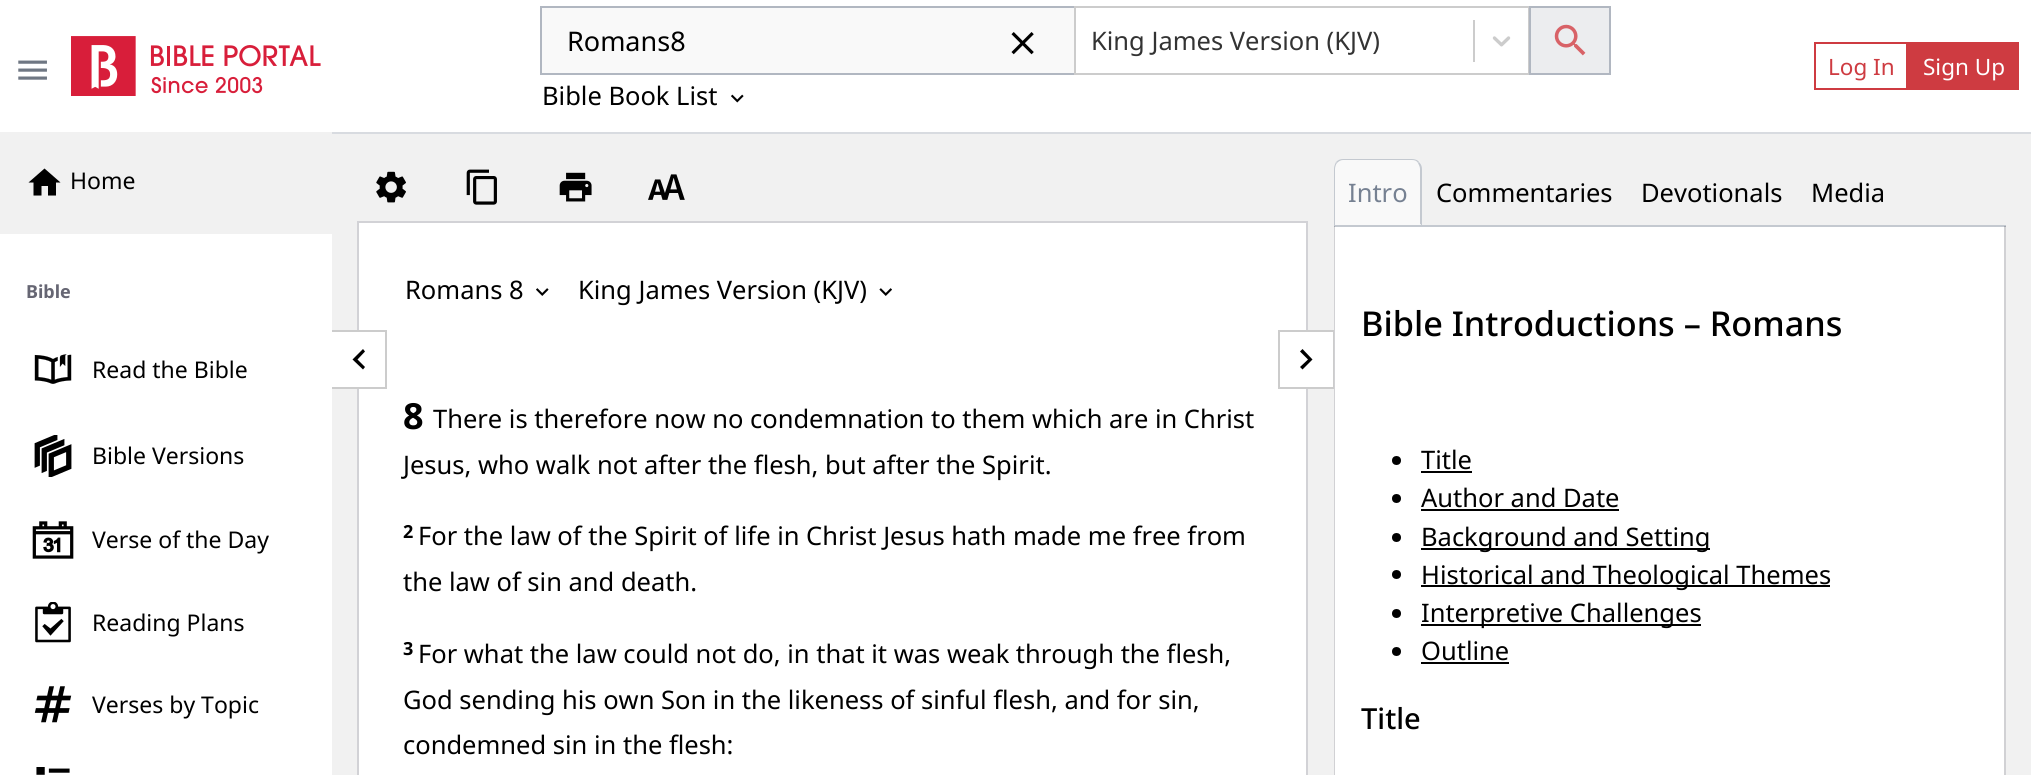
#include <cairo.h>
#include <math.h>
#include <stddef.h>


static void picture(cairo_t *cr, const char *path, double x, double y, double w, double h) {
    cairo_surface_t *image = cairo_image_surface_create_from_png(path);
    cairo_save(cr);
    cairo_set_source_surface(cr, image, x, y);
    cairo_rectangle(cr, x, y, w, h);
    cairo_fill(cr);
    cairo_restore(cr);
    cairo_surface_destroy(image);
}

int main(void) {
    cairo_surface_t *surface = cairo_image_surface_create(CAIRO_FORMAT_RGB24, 2031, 775);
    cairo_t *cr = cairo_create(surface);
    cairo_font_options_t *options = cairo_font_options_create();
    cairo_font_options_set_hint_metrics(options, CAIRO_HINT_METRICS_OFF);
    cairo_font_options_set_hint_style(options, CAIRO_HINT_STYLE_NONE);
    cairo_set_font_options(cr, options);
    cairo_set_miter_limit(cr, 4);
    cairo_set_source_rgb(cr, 0.945, 0.945, 0.945);
    cairo_paint(cr);
    cairo_set_source_rgb(cr, 1, 1, 1);
    cairo_rectangle(cr, 0, 0, 2031, 132);
    cairo_fill(cr);
    cairo_set_source_rgb(cr, 0.847, 0.859, 0.878);
    cairo_rectangle(cr, 332, 132, 1699, 2);
    cairo_fill(cr);
    picture(cr, "img1.png", 18, 60, 29, 20);
    picture(cr, "img2.png", 71, 36, 250, 60);
    cairo_set_source_rgb(cr, 0.976, 0.976, 0.976);
    cairo_rectangle(cr, 541, 7, 534, 67);
    cairo_fill_preserve(cr);
    cairo_set_source_rgb(cr, 0.694, 0.718, 0.757);
    cairo_stroke(cr);
    cairo_select_font_face(cr, "Noto Sans", CAIRO_FONT_SLANT_NORMAL, CAIRO_FONT_WEIGHT_NORMAL);
    cairo_set_font_size(cr, 27);
    cairo_set_source_rgb(cr, 0, 0, 0);
    cairo_move_to(cr, 567, 51);
    cairo_show_text(cr, "Romans8");
    picture(cr, "img3.png", 1011, 32, 23, 23);
    cairo_rectangle(cr, 1075, 7, 454, 67);
    cairo_set_source_rgb(cr, 0.8, 0.8, 0.8);
    cairo_stroke(cr);
    cairo_set_font_size(cr, 25.5);
    cairo_set_source_rgb(cr, 0.2, 0.2, 0.2);
    cairo_move_to(cr, 1091, 50);
    cairo_show_text(cr, "King James Version (KJV)");
    cairo_set_source_rgb(cr, 0.8, 0.8, 0.8);
    cairo_rectangle(cr, 1473, 20, 2, 42);
    cairo_fill(cr);
    picture(cr, "img4.png", 1492, 36, 19, 11);
    cairo_set_source_rgb(cr, 0.922, 0.929, 0.937);
    cairo_rectangle(cr, 1530, 7, 80, 67);
    cairo_fill_preserve(cr);
    cairo_set_source_rgb(cr, 0.694, 0.718, 0.757);
    cairo_stroke(cr);
    picture(cr, "img5.png", 1554, 24, 32, 32);
    cairo_set_source_rgb(cr, 0, 0, 0);
    cairo_move_to(cr, 542, 105);
    cairo_show_text(cr, "Bible Book List");
    picture(cr, "img6.png", 731, 94, 13, 9);
    cairo_rectangle(cr, 1815, 43, 92, 46);
    cairo_set_source_rgb(cr, 0.808, 0.231, 0.255);
    cairo_stroke(cr);
    cairo_set_font_size(cr, 22.5);
    cairo_move_to(cr, 1828, 75);
    cairo_show_text(cr, "Log In");
    cairo_rectangle(cr, 1908, 42, 111, 48);
    cairo_fill(cr);
    cairo_set_source_rgb(cr, 1, 1, 1);
    cairo_move_to(cr, 1923, 75);
    cairo_show_text(cr, "Sign Up");
    cairo_rectangle(cr, 358, 222, 949, 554);
    cairo_fill_preserve(cr);
    cairo_set_source_rgb(cr, 0.824, 0.824, 0.839);
    cairo_stroke(cr);
    cairo_set_source_rgb(cr, 1, 1, 1);
    cairo_rectangle(cr, 332, 332, 27, 55);
    cairo_fill(cr);
    cairo_rectangle(cr, 331, 331, 55, 57);
    cairo_set_source_rgb(cr, 0.8, 0.8, 0.8);
    cairo_stroke(cr);
    cairo_set_source_rgb(cr, 1, 1, 1);
    cairo_rectangle(cr, 0, 234, 332, 541);
    cairo_fill(cr);
    cairo_set_source_rgb(cr, 0, 0, 0);
    cairo_new_path(cr);
    cairo_move_to(cr, 41.5, 195.5);
    cairo_line_to(cr, 41.5, 186);
    cairo_line_to(cr, 48, 186);
    cairo_line_to(cr, 48, 195.5);
    cairo_line_to(cr, 56, 195.5);
    cairo_line_to(cr, 56, 182.5);
    cairo_line_to(cr, 60.5, 182.5);
    cairo_line_to(cr, 44.5, 168.5);
    cairo_line_to(cr, 28.5, 182.5);
    cairo_line_to(cr, 33.5, 182.5);
    cairo_line_to(cr, 33.5, 195.5);
    cairo_close_path(cr);
    cairo_fill(cr);
    cairo_set_font_size(cr, 23);
    cairo_move_to(cr, 70, 189);
    cairo_show_text(cr, "Home");
    cairo_select_font_face(cr, "Noto Sans", CAIRO_FONT_SLANT_NORMAL, CAIRO_FONT_WEIGHT_BOLD);
    cairo_set_font_size(cr, 18);
    cairo_set_source_rgb(cr, 0.4, 0.4, 0.451);
    cairo_move_to(cr, 26, 298);
    cairo_show_text(cr, "Bible");
    picture(cr, "img7.png", 34, 354, 38, 30);
    cairo_select_font_face(cr, "Noto Sans", CAIRO_FONT_SLANT_NORMAL, CAIRO_FONT_WEIGHT_NORMAL);
    cairo_set_font_size(cr, 23);
    cairo_set_source_rgb(cr, 0, 0, 0);
    cairo_move_to(cr, 92, 378);
    cairo_show_text(cr, "Read the Bible");
    picture(cr, "img8.png", 34, 435, 38, 42);
    cairo_move_to(cr, 92, 464);
    cairo_show_text(cr, "Bible Versions");
    picture(cr, "img9.png", 32, 521, 42, 38);
    cairo_move_to(cr, 92, 548);
    cairo_show_text(cr, "Verse of the Day");
    picture(cr, "img10.png", 35, 602, 36, 41);
    cairo_move_to(cr, 92, 631);
    cairo_show_text(cr, "Reading Plans");
    picture(cr, "img11.png", 34, 686, 38, 37);
    cairo_move_to(cr, 92, 713);
    cairo_show_text(cr, "Verses by Topic");
    picture(cr, "img12.png", 36, 767, 34, 8);
    picture(cr, "img13.png", 376, 171, 30, 32);
    picture(cr, "img14.png", 466, 169, 31, 36);
    picture(cr, "img15.png", 559, 172, 33, 30);
    picture(cr, "img16.png", 648, 174, 37, 26);
    cairo_new_path(cr);
    cairo_move_to(cr, 365, 367);
    cairo_line_to(cr, 357.5, 359.5);
    cairo_line_to(cr, 365, 351.5);
    cairo_line_to(cr, 363, 349);
    cairo_line_to(cr, 352.5, 359.5);
    cairo_line_to(cr, 363, 369.5);
    cairo_close_path(cr);
    cairo_fill(cr);
    cairo_set_font_size(cr, 25.5);
    cairo_move_to(cr, 405, 299);
    cairo_show_text(cr, "Romans 8");
    picture(cr, "img17.png", 536, 288, 13, 8);
    cairo_move_to(cr, 578, 299);
    cairo_show_text(cr, "King James Version (KJV)");
    picture(cr, "img18.png", 879, 288, 13, 8);
    cairo_select_font_face(cr, "Noto Sans", CAIRO_FONT_SLANT_NORMAL, CAIRO_FONT_WEIGHT_BOLD);
    cairo_set_font_size(cr, 36);
    cairo_move_to(cr, 403, 429);
    cairo_show_text(cr, "8");
    cairo_select_font_face(cr, "Noto Sans", CAIRO_FONT_SLANT_NORMAL, CAIRO_FONT_WEIGHT_NORMAL);
    cairo_set_font_size(cr, 25.5);
    cairo_move_to(cr, 433, 428);
    cairo_show_text(cr, "There is therefore now no condemnation to them which are in Christ");
    cairo_move_to(cr, 403, 474);
    cairo_show_text(cr, "Jesus, who walk not after the flesh, but after the Spirit.");
    cairo_select_font_face(cr, "Noto Sans", CAIRO_FONT_SLANT_NORMAL, CAIRO_FONT_WEIGHT_BOLD);
    cairo_set_font_size(cr, 18);
    cairo_move_to(cr, 403, 538);
    cairo_show_text(cr, "2");
    cairo_select_font_face(cr, "Noto Sans", CAIRO_FONT_SLANT_NORMAL, CAIRO_FONT_WEIGHT_NORMAL);
    cairo_set_font_size(cr, 25.5);
    cairo_move_to(cr, 418, 545);
    cairo_show_text(cr, "For the law of the Spirit of life in Christ Jesus hath made me free from");
    cairo_move_to(cr, 403, 591);
    cairo_show_text(cr, "the law of sin and death.");
    cairo_select_font_face(cr, "Noto Sans", CAIRO_FONT_SLANT_NORMAL, CAIRO_FONT_WEIGHT_BOLD);
    cairo_set_font_size(cr, 18);
    cairo_move_to(cr, 403, 655);
    cairo_show_text(cr, "3");
    cairo_select_font_face(cr, "Noto Sans", CAIRO_FONT_SLANT_NORMAL, CAIRO_FONT_WEIGHT_NORMAL);
    cairo_set_font_size(cr, 25.5);
    cairo_move_to(cr, 418, 663);
    cairo_show_text(cr, "For what the law could not do, in that it was weak through the flesh,");
    cairo_move_to(cr, 403, 709);
    cairo_show_text(cr, "God sending his own Son in the likeness of sinful flesh, and for sin,");
    cairo_move_to(cr, 403, 754);
    cairo_show_text(cr, "condemned sin in the flesh:");
    cairo_set_source_rgb(cr, 1, 1, 1);
    cairo_rectangle(cr, 1306, 332, 27, 55);
    cairo_fill(cr);
    cairo_rectangle(cr, 1279, 331, 55, 57);
    cairo_set_source_rgb(cr, 0.8, 0.8, 0.8);
    cairo_stroke(cr);
    cairo_set_source_rgb(cr, 0, 0, 0);
    cairo_new_path(cr);
    cairo_move_to(cr, 1300, 367);
    cairo_line_to(cr, 1308, 359.5);
    cairo_line_to(cr, 1300, 351.5);
    cairo_line_to(cr, 1302.5, 349);
    cairo_line_to(cr, 1312.5, 359.5);
    cairo_line_to(cr, 1302.5, 369.5);
    cairo_close_path(cr);
    cairo_fill(cr);
    cairo_set_source_rgb(cr, 0.769, 0.788, 0.816);
    cairo_rectangle(cr, 1334, 225, 672, 2);
    cairo_fill(cr);
    cairo_set_source_rgb(cr, 0.976, 0.976, 0.976);
    cairo_new_path(cr);
    cairo_move_to(cr, 1343, 159);
    cairo_line_to(cr, 1413, 159);
    cairo_curve_to(cr, 1418, 159, 1422, 163, 1422, 168);
    cairo_line_to(cr, 1422, 225);
    cairo_line_to(cr, 1334, 225);
    cairo_line_to(cr, 1334, 168);
    cairo_curve_to(cr, 1334, 163, 1338, 159, 1343, 159);
    cairo_close_path(cr);
    cairo_fill(cr);
    cairo_set_source_rgb(cr, 0.769, 0.788, 0.816);
    cairo_new_path(cr);
    cairo_move_to(cr, 1343, 159);
    cairo_curve_to(cr, 1340, 159, 1338, 160, 1336, 162);
    cairo_line_to(cr, 1337, 163);
    cairo_curve_to(cr, 1339, 161, 1341, 160, 1343, 160);
    cairo_line_to(cr, 1412, 160);
    cairo_curve_to(cr, 1415, 160, 1417, 161, 1418, 163);
    cairo_line_to(cr, 1419, 162);
    cairo_curve_to(cr, 1418, 160, 1415, 159, 1412, 159);
    cairo_close_path(cr);
    cairo_fill(cr);
    cairo_new_path(cr);
    cairo_move_to(cr, 1422, 226);
    cairo_line_to(cr, 1422, 169);
    cairo_curve_to(cr, 1422, 166, 1421, 164, 1419, 162);
    cairo_line_to(cr, 1418, 163);
    cairo_curve_to(cr, 1419, 165, 1420, 167, 1420, 169);
    cairo_line_to(cr, 1420, 224);
    cairo_close_path(cr);
    cairo_fill(cr);
    cairo_save(cr);
    cairo_rectangle(cr, 1334, 159, 672, 66);
    cairo_clip(cr);
    cairo_set_source_rgb(cr, 0.976, 0.976, 0.976);
    cairo_new_path(cr);
    cairo_move_to(cr, 1422, 226);
    cairo_line_to(cr, 1334, 226);
    cairo_line_to(cr, 1335, 225);
    cairo_line_to(cr, 1420, 225);
    cairo_line_to(cr, 1420, 224);
    cairo_close_path(cr);
    cairo_fill(cr);
    cairo_restore(cr);
    cairo_new_path(cr);
    cairo_move_to(cr, 1336, 162);
    cairo_curve_to(cr, 1335, 164, 1334, 166, 1334, 169);
    cairo_line_to(cr, 1334, 226);
    cairo_line_to(cr, 1335, 225);
    cairo_line_to(cr, 1335, 169);
    cairo_curve_to(cr, 1335, 167, 1336, 164, 1337, 163);
    cairo_close_path(cr);
    cairo_fill(cr);
    cairo_set_source_rgb(cr, 0.463, 0.506, 0.573);
    cairo_move_to(cr, 1348, 202);
    cairo_show_text(cr, "Intro");
    cairo_set_source_rgb(cr, 0, 0, 0);
    cairo_move_to(cr, 1436, 202);
    cairo_show_text(cr, "Commentaries");
    cairo_move_to(cr, 1641, 202);
    cairo_show_text(cr, "Devotionals");
    cairo_move_to(cr, 1811, 202);
    cairo_show_text(cr, "Media");
    cairo_set_source_rgb(cr, 1, 1, 1);
    cairo_rectangle(cr, 1334, 227, 672, 548);
    cairo_fill(cr);
    cairo_set_source_rgba(cr, 0, 0, 0.082, 0.18);
    cairo_new_path(cr);
    cairo_move_to(cr, 2006, 226);
    cairo_line_to(cr, 2006, 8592);
    cairo_line_to(cr, 2004, 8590);
    cairo_line_to(cr, 2004, 226);
    cairo_close_path(cr);
    cairo_fill(cr);
    cairo_new_path(cr);
    cairo_move_to(cr, 1334, 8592);
    cairo_line_to(cr, 1334, 226);
    cairo_line_to(cr, 1335, 226);
    cairo_line_to(cr, 1335, 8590);
    cairo_close_path(cr);
    cairo_fill(cr);
    cairo_select_font_face(cr, "Noto Sans Medium", CAIRO_FONT_SLANT_NORMAL, CAIRO_FONT_WEIGHT_NORMAL);
    cairo_set_font_size(cr, 34.25);
    cairo_set_source_rgb(cr, 0, 0, 0);
    cairo_move_to(cr, 1361, 336);
    cairo_show_text(cr, "Bible Introductions – Romans");
    cairo_new_path(cr);
    cairo_arc(cr, 1396.5, 460.5, 4.5, 0, 2 * M_PI);
    cairo_fill(cr);
    cairo_select_font_face(cr, "Noto Sans", CAIRO_FONT_SLANT_NORMAL, CAIRO_FONT_WEIGHT_NORMAL);
    cairo_set_font_size(cr, 25.5);
    cairo_move_to(cr, 1421, 469);
    cairo_show_text(cr, "Title");
    cairo_rectangle(cr, 1421, 471, 51, 2);
    cairo_fill(cr);
    cairo_arc(cr, 1396.5, 498.5, 4.5, 0, 2 * M_PI);
    cairo_fill(cr);
    cairo_move_to(cr, 1421, 507);
    cairo_show_text(cr, "Author and Date");
    cairo_rectangle(cr, 1421, 509, 198, 2);
    cairo_fill(cr);
    cairo_arc(cr, 1396.5, 537.5, 4.5, 0, 2 * M_PI);
    cairo_fill(cr);
    cairo_rectangle(cr, 1421, 548, 289, 2);
    cairo_fill(cr);
    cairo_move_to(cr, 1421, 546);
    cairo_show_text(cr, "Background and Setting");
    cairo_new_path(cr);
    cairo_arc(cr, 1396.5, 574.5, 4.5, 0, 2 * M_PI);
    cairo_fill(cr);
    cairo_rectangle(cr, 1421, 585, 409, 2);
    cairo_fill(cr);
    cairo_move_to(cr, 1421, 584);
    cairo_show_text(cr, "Historical and Theological Themes");
    cairo_new_path(cr);
    cairo_arc(cr, 1396.5, 613.5, 4.5, 0, 2 * M_PI);
    cairo_fill(cr);
    cairo_rectangle(cr, 1421, 624, 280, 2);
    cairo_fill(cr);
    cairo_move_to(cr, 1421, 622);
    cairo_show_text(cr, "Interpretive Challenges");
    cairo_new_path(cr);
    cairo_arc(cr, 1396.5, 651.5, 4.5, 0, 2 * M_PI);
    cairo_fill(cr);
    cairo_move_to(cr, 1421, 660);
    cairo_show_text(cr, "Outline");
    cairo_rectangle(cr, 1421, 662, 88, 2);
    cairo_fill(cr);
    cairo_select_font_face(cr, "Noto Sans Medium", CAIRO_FONT_SLANT_NORMAL, CAIRO_FONT_WEIGHT_NORMAL);
    cairo_set_font_size(cr, 29);
    cairo_move_to(cr, 1361, 729);
    cairo_show_text(cr, "Title");
    cairo_surface_write_to_png(surface, "page.png");
    cairo_font_options_destroy(options);
    cairo_destroy(cr);
    cairo_surface_destroy(surface);
    return 0;
}
